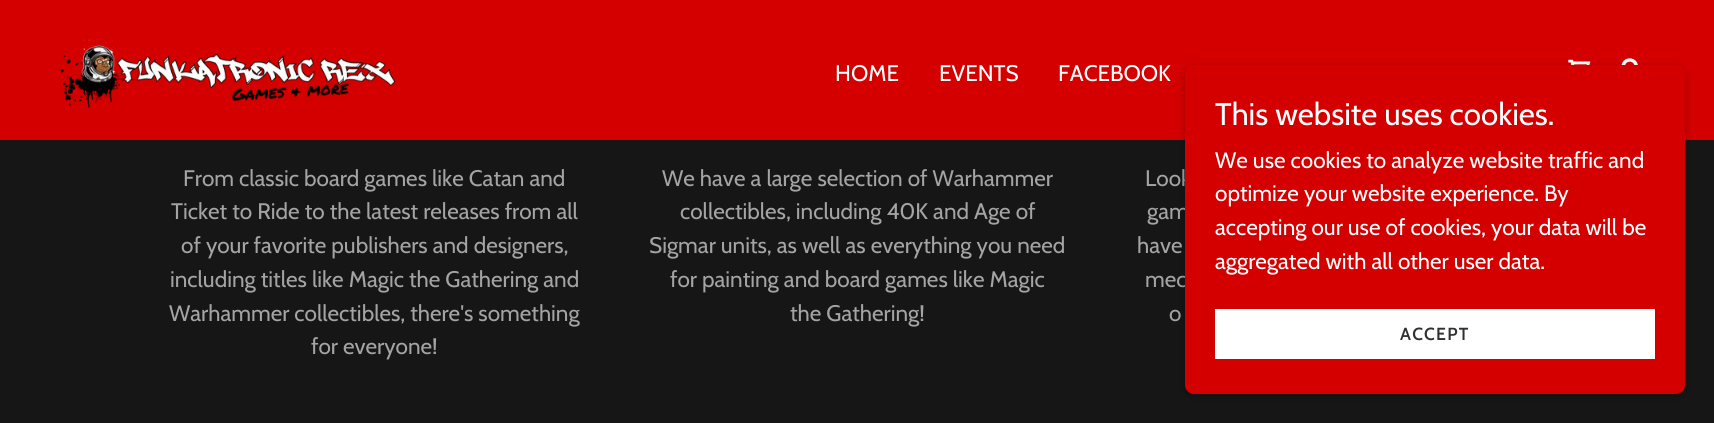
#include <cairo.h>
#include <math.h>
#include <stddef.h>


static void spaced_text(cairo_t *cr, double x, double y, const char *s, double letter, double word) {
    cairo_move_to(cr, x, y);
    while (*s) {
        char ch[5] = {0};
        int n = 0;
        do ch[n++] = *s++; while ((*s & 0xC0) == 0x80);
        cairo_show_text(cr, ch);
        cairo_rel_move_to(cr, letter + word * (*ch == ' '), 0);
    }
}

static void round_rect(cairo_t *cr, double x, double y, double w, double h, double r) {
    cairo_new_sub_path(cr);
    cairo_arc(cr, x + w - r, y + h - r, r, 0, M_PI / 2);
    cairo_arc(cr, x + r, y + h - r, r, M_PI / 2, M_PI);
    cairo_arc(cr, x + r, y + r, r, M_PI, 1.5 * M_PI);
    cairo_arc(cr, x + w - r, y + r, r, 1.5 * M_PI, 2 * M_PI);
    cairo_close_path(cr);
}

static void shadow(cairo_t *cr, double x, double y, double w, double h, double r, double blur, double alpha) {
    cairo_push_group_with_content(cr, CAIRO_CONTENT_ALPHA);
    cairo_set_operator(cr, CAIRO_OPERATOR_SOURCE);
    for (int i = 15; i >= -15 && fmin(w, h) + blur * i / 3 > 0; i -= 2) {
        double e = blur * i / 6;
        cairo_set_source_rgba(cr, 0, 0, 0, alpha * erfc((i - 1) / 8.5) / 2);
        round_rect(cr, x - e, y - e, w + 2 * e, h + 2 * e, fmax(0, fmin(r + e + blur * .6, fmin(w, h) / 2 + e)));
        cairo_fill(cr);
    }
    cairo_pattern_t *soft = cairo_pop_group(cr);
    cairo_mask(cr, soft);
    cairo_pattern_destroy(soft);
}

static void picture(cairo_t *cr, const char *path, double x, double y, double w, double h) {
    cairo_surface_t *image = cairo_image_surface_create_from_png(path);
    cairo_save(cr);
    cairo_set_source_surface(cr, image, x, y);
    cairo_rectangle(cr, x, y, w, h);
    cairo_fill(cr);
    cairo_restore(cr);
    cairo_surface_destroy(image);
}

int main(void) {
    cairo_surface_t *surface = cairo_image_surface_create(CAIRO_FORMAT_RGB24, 1714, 423);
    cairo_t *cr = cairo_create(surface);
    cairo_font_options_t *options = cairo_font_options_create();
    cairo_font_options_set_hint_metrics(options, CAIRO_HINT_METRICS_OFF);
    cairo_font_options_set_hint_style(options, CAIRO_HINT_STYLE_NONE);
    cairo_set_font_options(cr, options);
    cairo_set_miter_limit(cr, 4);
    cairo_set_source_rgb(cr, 0.086, 0.086, 0.086);
    cairo_paint(cr);
    cairo_set_source_rgb(cr, 0.831, 0, 0);
    cairo_rectangle(cr, 0, 0, 1714, 140);
    cairo_fill(cr);
    picture(cr, "img1.png", 60, 39, 335, 69);
    picture(cr, "img2.png", 1568, 59, 23, 6);
    picture(cr, "img3.png", 1621, 58, 17, 7);
    cairo_select_font_face(cr, "Cabin", CAIRO_FONT_SLANT_NORMAL, CAIRO_FONT_WEIGHT_NORMAL);
    cairo_set_font_size(cr, 22.5);
    cairo_set_source_rgb(cr, 1, 1, 1);
    cairo_move_to(cr, 835, 81);
    cairo_show_text(cr, "HOME");
    cairo_move_to(cr, 939, 81);
    cairo_show_text(cr, "EVENTS");
    cairo_move_to(cr, 1058, 81);
    cairo_show_text(cr, "FACEBOOK");
    cairo_set_source_rgb(cr, 0.643, 0.643, 0.643);
    cairo_move_to(cr, 183, 186);
    cairo_show_text(cr, "From classic board games like Catan and");
    cairo_move_to(cr, 171, 219);
    cairo_show_text(cr, "Ticket to Ride to the latest releases from all");
    cairo_move_to(cr, 181, 253);
    cairo_show_text(cr, "of your favorite publishers and designers,");
    cairo_move_to(cr, 170, 287);
    cairo_show_text(cr, "including titles like Magic the Gathering and");
    cairo_move_to(cr, 169, 321);
    cairo_show_text(cr, "Warhammer collectibles, there's something");
    cairo_move_to(cr, 311, 354);
    cairo_show_text(cr, "for everyone!");
    cairo_move_to(cr, 662, 186);
    cairo_show_text(cr, "We have a large selection of Warhammer");
    cairo_move_to(cr, 680, 219);
    cairo_show_text(cr, "collectibles, including 40K and Age of");
    cairo_move_to(cr, 649, 253);
    cairo_show_text(cr, "Sigmar units, as well as everything you need");
    cairo_move_to(cr, 670, 287);
    cairo_show_text(cr, "for painting and board games like Magic");
    cairo_move_to(cr, 790, 321);
    cairo_show_text(cr, "the Gathering!");
    cairo_move_to(cr, 1145, 186);
    cairo_show_text(cr, "Look");
    cairo_move_to(cr, 1147, 219);
    cairo_show_text(cr, "gam");
    cairo_move_to(cr, 1137, 253);
    cairo_show_text(cr, "have");
    cairo_move_to(cr, 1145, 287);
    cairo_show_text(cr, "mec");
    cairo_move_to(cr, 1169, 321);
    cairo_show_text(cr, "o");
    cairo_set_source_rgb(cr, 0, 0, 0);
    shadow(cr, 1185, 68, 500, 328, 9, 4, 0.3);
    cairo_set_source_rgb(cr, 0.831, 0, 0);
    round_rect(cr, 1185, 65, 500, 329, 9);
    cairo_fill(cr);
    cairo_set_font_size(cr, 31.25);
    cairo_set_source_rgb(cr, 1, 1, 1);
    cairo_move_to(cr, 1215, 125);
    cairo_show_text(cr, "This website uses cookies.");
    cairo_set_font_size(cr, 22.5);
    cairo_move_to(cr, 1215, 168);
    cairo_show_text(cr, "We use cookies to analyze website traffic and");
    cairo_move_to(cr, 1215, 201);
    cairo_show_text(cr, "optimize your website experience. By");
    cairo_move_to(cr, 1215, 235);
    cairo_show_text(cr, "accepting our use of cookies, your data will be");
    cairo_move_to(cr, 1215, 269);
    cairo_show_text(cr, "aggregated with all other user data.");
    cairo_rectangle(cr, 1215, 309, 440, 50);
    cairo_fill(cr);
    cairo_select_font_face(cr, "Cabin SemiBold", CAIRO_FONT_SLANT_NORMAL, CAIRO_FONT_WEIGHT_NORMAL);
    cairo_set_font_size(cr, 17.5);
    cairo_set_source_rgb(cr, 0.188, 0.188, 0.188);
    spaced_text(cr, 1400, 340, "ACCEPT", 1.25, 0);
    cairo_surface_write_to_png(surface, "page.png");
    cairo_font_options_destroy(options);
    cairo_destroy(cr);
    cairo_surface_destroy(surface);
    return 0;
}
